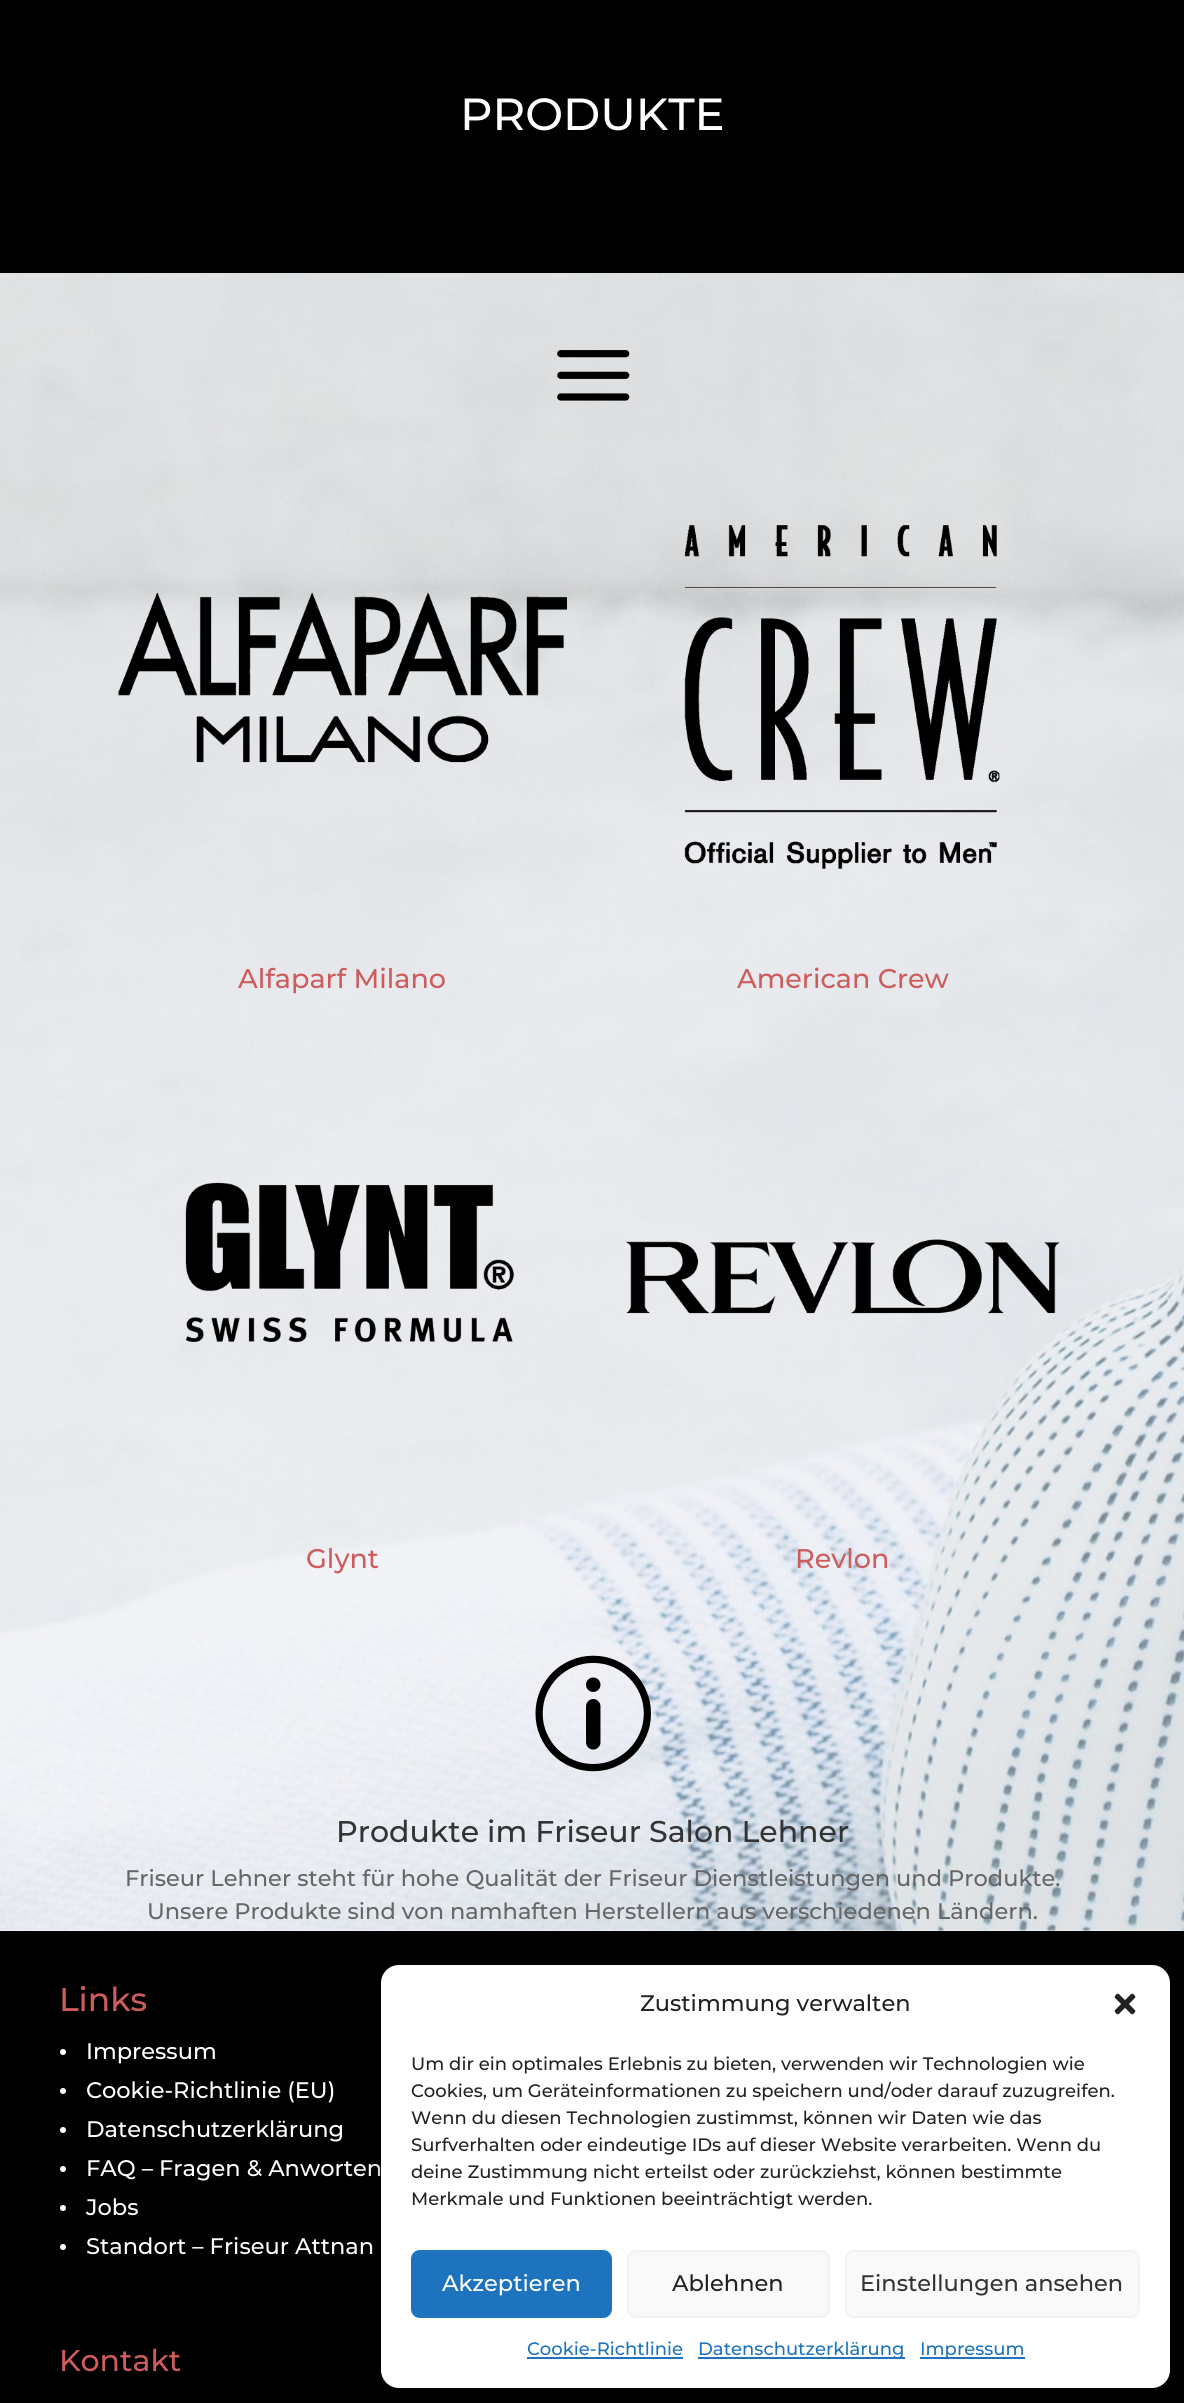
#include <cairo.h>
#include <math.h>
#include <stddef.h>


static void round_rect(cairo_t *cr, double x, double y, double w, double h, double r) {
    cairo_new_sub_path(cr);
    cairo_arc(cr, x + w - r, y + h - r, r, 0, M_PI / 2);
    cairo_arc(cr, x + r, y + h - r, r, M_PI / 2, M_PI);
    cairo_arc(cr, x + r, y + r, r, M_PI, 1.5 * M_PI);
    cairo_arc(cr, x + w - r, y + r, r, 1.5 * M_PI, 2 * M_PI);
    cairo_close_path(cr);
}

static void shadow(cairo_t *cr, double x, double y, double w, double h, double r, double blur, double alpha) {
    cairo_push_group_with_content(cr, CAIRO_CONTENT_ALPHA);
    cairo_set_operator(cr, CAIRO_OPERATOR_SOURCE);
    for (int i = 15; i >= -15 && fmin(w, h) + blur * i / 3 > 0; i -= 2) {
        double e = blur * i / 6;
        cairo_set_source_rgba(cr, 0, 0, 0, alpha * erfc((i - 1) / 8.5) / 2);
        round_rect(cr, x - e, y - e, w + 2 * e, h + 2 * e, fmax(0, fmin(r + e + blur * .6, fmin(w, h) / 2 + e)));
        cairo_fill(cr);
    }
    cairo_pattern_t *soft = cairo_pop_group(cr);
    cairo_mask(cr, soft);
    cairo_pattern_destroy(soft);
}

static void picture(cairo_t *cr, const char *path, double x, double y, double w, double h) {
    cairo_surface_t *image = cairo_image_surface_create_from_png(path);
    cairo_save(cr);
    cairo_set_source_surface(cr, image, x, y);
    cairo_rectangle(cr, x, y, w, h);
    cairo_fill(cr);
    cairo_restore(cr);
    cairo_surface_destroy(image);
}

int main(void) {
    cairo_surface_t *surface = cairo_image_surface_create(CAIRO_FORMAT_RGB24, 1184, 2403);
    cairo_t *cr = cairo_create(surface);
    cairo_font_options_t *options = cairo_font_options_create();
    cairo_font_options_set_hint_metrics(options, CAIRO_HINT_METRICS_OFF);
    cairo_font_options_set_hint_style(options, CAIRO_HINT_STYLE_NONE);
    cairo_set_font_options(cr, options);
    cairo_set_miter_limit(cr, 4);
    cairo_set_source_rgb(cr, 1, 1, 1);
    cairo_paint(cr);
    cairo_set_source_rgb(cr, 0, 0, 0);
    cairo_rectangle(cr, 0, 0, 1184, 273);
    cairo_fill(cr);
    cairo_select_font_face(cr, "Montserrat Medium", CAIRO_FONT_SLANT_NORMAL, CAIRO_FONT_WEIGHT_NORMAL);
    cairo_set_font_size(cr, 45);
    cairo_set_source_rgb(cr, 1, 1, 1);
    cairo_move_to(cr, 460, 130);
    cairo_show_text(cr, "PRODUKTE");
    picture(cr, "img1.png", 0, 273, 1184, 1658);
    picture(cr, "img2.png", 557, 350, 73, 51);
    picture(cr, "img3.png", 118, 592, 449, 171);
    cairo_set_font_size(cr, 27);
    cairo_set_source_rgb(cr, 0.804, 0.361, 0.361);
    cairo_move_to(cr, 238, 988);
    cairo_show_text(cr, "Alfaparf Milano");
    picture(cr, "img4.png", 684, 525, 316, 344);
    cairo_move_to(cr, 737, 988);
    cairo_show_text(cr, "American Crew");
    picture(cr, "img5.png", 185, 1182, 329, 161);
    cairo_move_to(cr, 306, 1568);
    cairo_show_text(cr, "Glynt");
    picture(cr, "img6.png", 625, 1239, 435, 75);
    cairo_move_to(cr, 795, 1568);
    cairo_show_text(cr, "Revlon");
    picture(cr, "img7.png", 535, 1655, 116, 117);
    cairo_set_font_size(cr, 30);
    cairo_set_source_rgb(cr, 0.2, 0.2, 0.2);
    cairo_move_to(cr, 336, 1842);
    cairo_show_text(cr, "Produkte im Friseur Salon Lehner");
    cairo_set_font_size(cr, 22.5);
    cairo_set_source_rgb(cr, 0.4, 0.4, 0.4);
    cairo_move_to(cr, 125, 1886);
    cairo_show_text(cr, "Friseur Lehner steht für hohe Qualität der Friseur Dienstleistungen und Produkte.");
    cairo_move_to(cr, 147, 1919);
    cairo_show_text(cr, "Unsere Produkte sind von namhaften Herstellern aus verschiedenen Ländern.");
    cairo_set_source_rgb(cr, 0, 0, 0);
    cairo_rectangle(cr, 0, 1931, 1184, 472);
    cairo_fill(cr);
    cairo_set_font_size(cr, 33);
    cairo_set_source_rgb(cr, 0.804, 0.361, 0.361);
    cairo_move_to(cr, 59, 2011);
    cairo_show_text(cr, "Links");
    cairo_set_source_rgb(cr, 1, 1, 1);
    cairo_new_path(cr);
    cairo_arc(cr, 63, 2052, 3, 0, 2 * M_PI);
    cairo_fill(cr);
    cairo_set_font_size(cr, 22.5);
    cairo_move_to(cr, 86, 2059);
    cairo_show_text(cr, "Impressum");
    cairo_new_path(cr);
    cairo_arc(cr, 63, 2091, 3, 0, 2 * M_PI);
    cairo_fill(cr);
    cairo_move_to(cr, 86, 2098);
    cairo_show_text(cr, "Cookie-Richtlinie (EU)");
    cairo_new_path(cr);
    cairo_arc(cr, 63, 2130, 3, 0, 2 * M_PI);
    cairo_fill(cr);
    cairo_move_to(cr, 86, 2137);
    cairo_show_text(cr, "Datenschutzerklärung");
    cairo_new_path(cr);
    cairo_arc(cr, 63, 2169, 3, 0, 2 * M_PI);
    cairo_fill(cr);
    cairo_move_to(cr, 86, 2176);
    cairo_show_text(cr, "FAQ – Fragen & Anworten");
    cairo_new_path(cr);
    cairo_arc(cr, 63, 2208, 3, 0, 2 * M_PI);
    cairo_fill(cr);
    cairo_move_to(cr, 86, 2215);
    cairo_show_text(cr, "Jobs");
    cairo_new_path(cr);
    cairo_arc(cr, 63, 2247, 3, 0, 2 * M_PI);
    cairo_fill(cr);
    cairo_move_to(cr, 86, 2254);
    cairo_show_text(cr, "Standort – Friseur Attnan");
    cairo_set_font_size(cr, 30);
    cairo_set_source_rgb(cr, 0.804, 0.361, 0.361);
    cairo_move_to(cr, 59, 2371);
    cairo_show_text(cr, "Kontakt");
    cairo_set_source_rgb(cr, 0, 0, 0);
    shadow(cr, 381, 1974, 789, 423, 18, 4.5, 0.23);
    shadow(cr, 381, 1980, 789, 423, 18, 15, 0.19);
    cairo_set_source_rgb(cr, 1, 1, 1);
    round_rect(cr, 381, 1965, 789, 423, 18);
    cairo_fill(cr);
    cairo_set_font_size(cr, 22.5);
    cairo_set_source_rgb(cr, 0.133, 0.133, 0.133);
    cairo_move_to(cr, 640, 2011);
    cairo_show_text(cr, "Zustimmung verwalten");
    picture(cr, "img8.png", 1114, 1993, 22, 22);
    cairo_set_font_size(cr, 18);
    cairo_move_to(cr, 411, 2070);
    cairo_show_text(cr, "Um dir ein optimales Erlebnis zu bieten, verwenden wir Technologien wie");
    cairo_move_to(cr, 411, 2097);
    cairo_show_text(cr, "Cookies, um Geräteinformationen zu speichern und/oder darauf zuzugreifen.");
    cairo_move_to(cr, 411, 2124);
    cairo_show_text(cr, "Wenn du diesen Technologien zustimmst, können wir Daten wie das");
    cairo_move_to(cr, 411, 2151);
    cairo_show_text(cr, "Surfverhalten oder eindeutige IDs auf dieser Website verarbeiten. Wenn du");
    cairo_move_to(cr, 411, 2178);
    cairo_show_text(cr, "deine Zustimmung nicht erteilst oder zurückziehst, können bestimmte");
    cairo_move_to(cr, 411, 2205);
    cairo_show_text(cr, "Merkmale und Funktionen beeinträchtigt werden.");
    cairo_set_source_rgb(cr, 0.118, 0.451, 0.745);
    round_rect(cr, 412, 2251, 199, 66, 8);
    cairo_fill_preserve(cr);
    cairo_stroke(cr);
    cairo_set_font_size(cr, 22.5);
    cairo_set_source_rgb(cr, 1, 1, 1);
    cairo_move_to(cr, 442, 2291);
    cairo_show_text(cr, "Akzeptieren");
    cairo_set_source_rgb(cr, 0.976, 0.976, 0.976);
    round_rect(cr, 628, 2251, 201, 66, 8);
    cairo_fill_preserve(cr);
    cairo_set_source_rgb(cr, 0.949, 0.949, 0.949);
    cairo_stroke(cr);
    cairo_set_source_rgb(cr, 0.133, 0.133, 0.133);
    cairo_move_to(cr, 672, 2291);
    cairo_show_text(cr, "Ablehnen");
    cairo_set_source_rgb(cr, 0.976, 0.976, 0.976);
    round_rect(cr, 846, 2251, 293, 66, 8);
    cairo_fill_preserve(cr);
    cairo_set_source_rgb(cr, 0.949, 0.949, 0.949);
    cairo_stroke(cr);
    cairo_set_source_rgb(cr, 0.2, 0.2, 0.2);
    cairo_move_to(cr, 860, 2291);
    cairo_show_text(cr, "Einstellungen ansehen");
    cairo_set_font_size(cr, 18);
    cairo_set_source_rgb(cr, 0.118, 0.451, 0.745);
    cairo_move_to(cr, 527, 2355);
    cairo_show_text(cr, "Cookie-Richtlinie");
    cairo_rectangle(cr, 527, 2357, 156, 2);
    cairo_fill(cr);
    cairo_rectangle(cr, 698, 2357, 207, 2);
    cairo_fill(cr);
    cairo_move_to(cr, 698, 2355);
    cairo_show_text(cr, "Datenschutzerklärung");
    cairo_rectangle(cr, 920, 2357, 105, 2);
    cairo_fill(cr);
    cairo_move_to(cr, 920, 2355);
    cairo_show_text(cr, "Impressum");
    cairo_surface_write_to_png(surface, "page.png");
    cairo_font_options_destroy(options);
    cairo_destroy(cr);
    cairo_surface_destroy(surface);
    return 0;
}
